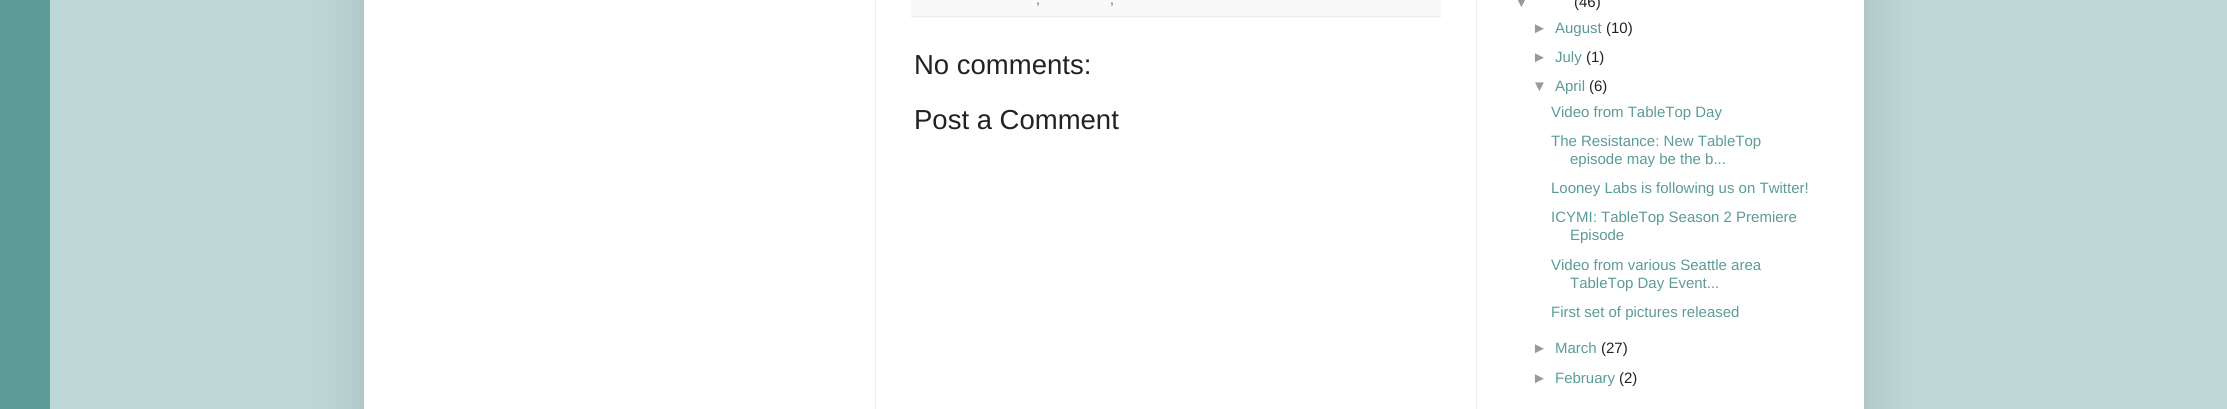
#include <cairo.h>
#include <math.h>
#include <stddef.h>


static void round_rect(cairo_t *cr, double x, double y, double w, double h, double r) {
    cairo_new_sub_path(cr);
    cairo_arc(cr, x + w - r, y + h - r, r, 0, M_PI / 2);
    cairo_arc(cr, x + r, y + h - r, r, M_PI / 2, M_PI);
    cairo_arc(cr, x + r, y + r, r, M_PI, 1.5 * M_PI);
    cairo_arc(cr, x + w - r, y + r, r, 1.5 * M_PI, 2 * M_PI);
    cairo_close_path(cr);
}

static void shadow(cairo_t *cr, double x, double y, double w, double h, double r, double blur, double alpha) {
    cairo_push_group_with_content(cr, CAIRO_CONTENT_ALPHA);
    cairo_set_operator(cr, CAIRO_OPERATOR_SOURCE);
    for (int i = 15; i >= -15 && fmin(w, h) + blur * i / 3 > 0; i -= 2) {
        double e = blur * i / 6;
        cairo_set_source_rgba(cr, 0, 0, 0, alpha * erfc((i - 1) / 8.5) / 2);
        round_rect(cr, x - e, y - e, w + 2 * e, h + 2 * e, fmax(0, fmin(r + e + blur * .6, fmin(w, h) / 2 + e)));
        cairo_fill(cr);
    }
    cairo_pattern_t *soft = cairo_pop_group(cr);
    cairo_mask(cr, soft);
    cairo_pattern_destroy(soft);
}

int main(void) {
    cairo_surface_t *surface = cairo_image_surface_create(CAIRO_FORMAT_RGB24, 2227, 409);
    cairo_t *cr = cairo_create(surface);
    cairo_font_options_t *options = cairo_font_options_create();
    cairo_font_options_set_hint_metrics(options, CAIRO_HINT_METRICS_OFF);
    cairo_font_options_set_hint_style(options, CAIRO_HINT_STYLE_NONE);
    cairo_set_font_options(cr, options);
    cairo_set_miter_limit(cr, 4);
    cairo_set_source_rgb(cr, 0.357, 0.608, 0.596);
    cairo_paint(cr);
    cairo_set_source_rgb(cr, 0.741, 0.843, 0.839);
    cairo_rectangle(cr, 50, 0, 2177, 409);
    cairo_fill(cr);
    cairo_set_source_rgb(cr, 0, 0, 0);
    shadow(cr, 364, -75, 1500, 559, 0, 25, 0.15);
    cairo_set_source_rgb(cr, 1, 1, 1);
    cairo_rectangle(cr, 364, 0, 1500, 409);
    cairo_fill(cr);
    cairo_set_source_rgb(cr, 0.933, 0.933, 0.933);
    cairo_rectangle(cr, 875, 0, 1, 409);
    cairo_fill(cr);
    cairo_set_source_rgb(cr, 0.976, 0.976, 0.976);
    cairo_rectangle(cr, 911, 0, 530, 18);
    cairo_fill(cr);
    cairo_set_source_rgb(cr, 0.933, 0.933, 0.933);
    cairo_rectangle(cr, 911, 16, 530, 1);
    cairo_fill(cr);
    cairo_select_font_face(cr, "Liberation Sans", CAIRO_FONT_SLANT_NORMAL, CAIRO_FONT_WEIGHT_NORMAL);
    cairo_set_font_size(cr, 14);
    cairo_set_source_rgb(cr, 0.4, 0.4, 0.4);
    cairo_move_to(cr, 1036, 4);
    cairo_show_text(cr, ",");
    cairo_move_to(cr, 1110, 4);
    cairo_show_text(cr, ",");
    cairo_set_font_size(cr, 27.5);
    cairo_set_source_rgb(cr, 0.133, 0.133, 0.133);
    cairo_move_to(cr, 914, 74);
    cairo_show_text(cr, "No comments:");
    cairo_move_to(cr, 914, 129);
    cairo_show_text(cr, "Post a Comment");
    cairo_set_font_size(cr, 15);
    cairo_set_source_rgb(cr, 0.6, 0.6, 0.6);
    cairo_move_to(cr, 1514, 7);
    cairo_show_text(cr, "▼");
    cairo_set_source_rgb(cr, 0.133, 0.133, 0.133);
    cairo_move_to(cr, 1574, 7);
    cairo_show_text(cr, "(46)");
    cairo_set_source_rgb(cr, 0.6, 0.6, 0.6);
    cairo_move_to(cr, 1532, 33);
    cairo_show_text(cr, "►");
    cairo_set_source_rgb(cr, 0.357, 0.608, 0.596);
    cairo_move_to(cr, 1555, 33);
    cairo_show_text(cr, "August");
    cairo_set_source_rgb(cr, 0.133, 0.133, 0.133);
    cairo_move_to(cr, 1606, 33);
    cairo_show_text(cr, "(10)");
    cairo_set_source_rgb(cr, 0.6, 0.6, 0.6);
    cairo_move_to(cr, 1532, 62);
    cairo_show_text(cr, "►");
    cairo_set_source_rgb(cr, 0.357, 0.608, 0.596);
    cairo_move_to(cr, 1555, 62);
    cairo_show_text(cr, "July");
    cairo_set_source_rgb(cr, 0.133, 0.133, 0.133);
    cairo_move_to(cr, 1586, 62);
    cairo_show_text(cr, "(1)");
    cairo_set_source_rgb(cr, 0.6, 0.6, 0.6);
    cairo_move_to(cr, 1532, 91);
    cairo_show_text(cr, "▼");
    cairo_set_source_rgb(cr, 0.357, 0.608, 0.596);
    cairo_move_to(cr, 1555, 91);
    cairo_show_text(cr, "April");
    cairo_set_source_rgb(cr, 0.133, 0.133, 0.133);
    cairo_move_to(cr, 1589, 91);
    cairo_show_text(cr, "(6)");
    cairo_set_source_rgb(cr, 0.357, 0.608, 0.596);
    cairo_move_to(cr, 1551, 117);
    cairo_show_text(cr, "Video from TableTop Day");
    cairo_move_to(cr, 1551, 146);
    cairo_show_text(cr, "The Resistance: New TableTop");
    cairo_move_to(cr, 1570, 164);
    cairo_show_text(cr, "episode may be the b...");
    cairo_move_to(cr, 1551, 193);
    cairo_show_text(cr, "Looney Labs is following us on Twitter!");
    cairo_move_to(cr, 1551, 222);
    cairo_show_text(cr, "ICYMI: TableTop Season 2 Premiere");
    cairo_move_to(cr, 1570, 240);
    cairo_show_text(cr, "Episode");
    cairo_move_to(cr, 1551, 270);
    cairo_show_text(cr, "Video from various Seattle area");
    cairo_move_to(cr, 1570, 288);
    cairo_show_text(cr, "TableTop Day Event...");
    cairo_move_to(cr, 1551, 317);
    cairo_show_text(cr, "First set of pictures released");
    cairo_set_source_rgb(cr, 0.6, 0.6, 0.6);
    cairo_move_to(cr, 1532, 353);
    cairo_show_text(cr, "►");
    cairo_set_source_rgb(cr, 0.357, 0.608, 0.596);
    cairo_move_to(cr, 1555, 353);
    cairo_show_text(cr, "March");
    cairo_set_source_rgb(cr, 0.133, 0.133, 0.133);
    cairo_move_to(cr, 1601, 353);
    cairo_show_text(cr, "(27)");
    cairo_set_source_rgb(cr, 0.6, 0.6, 0.6);
    cairo_move_to(cr, 1532, 383);
    cairo_show_text(cr, "►");
    cairo_set_source_rgb(cr, 0.357, 0.608, 0.596);
    cairo_move_to(cr, 1555, 383);
    cairo_show_text(cr, "February");
    cairo_set_source_rgb(cr, 0.133, 0.133, 0.133);
    cairo_move_to(cr, 1619, 383);
    cairo_show_text(cr, "(2)");
    cairo_set_source_rgb(cr, 0.933, 0.933, 0.933);
    cairo_rectangle(cr, 1476, 0, 1, 409);
    cairo_fill(cr);
    cairo_surface_write_to_png(surface, "page.png");
    cairo_font_options_destroy(options);
    cairo_destroy(cr);
    cairo_surface_destroy(surface);
    return 0;
}
